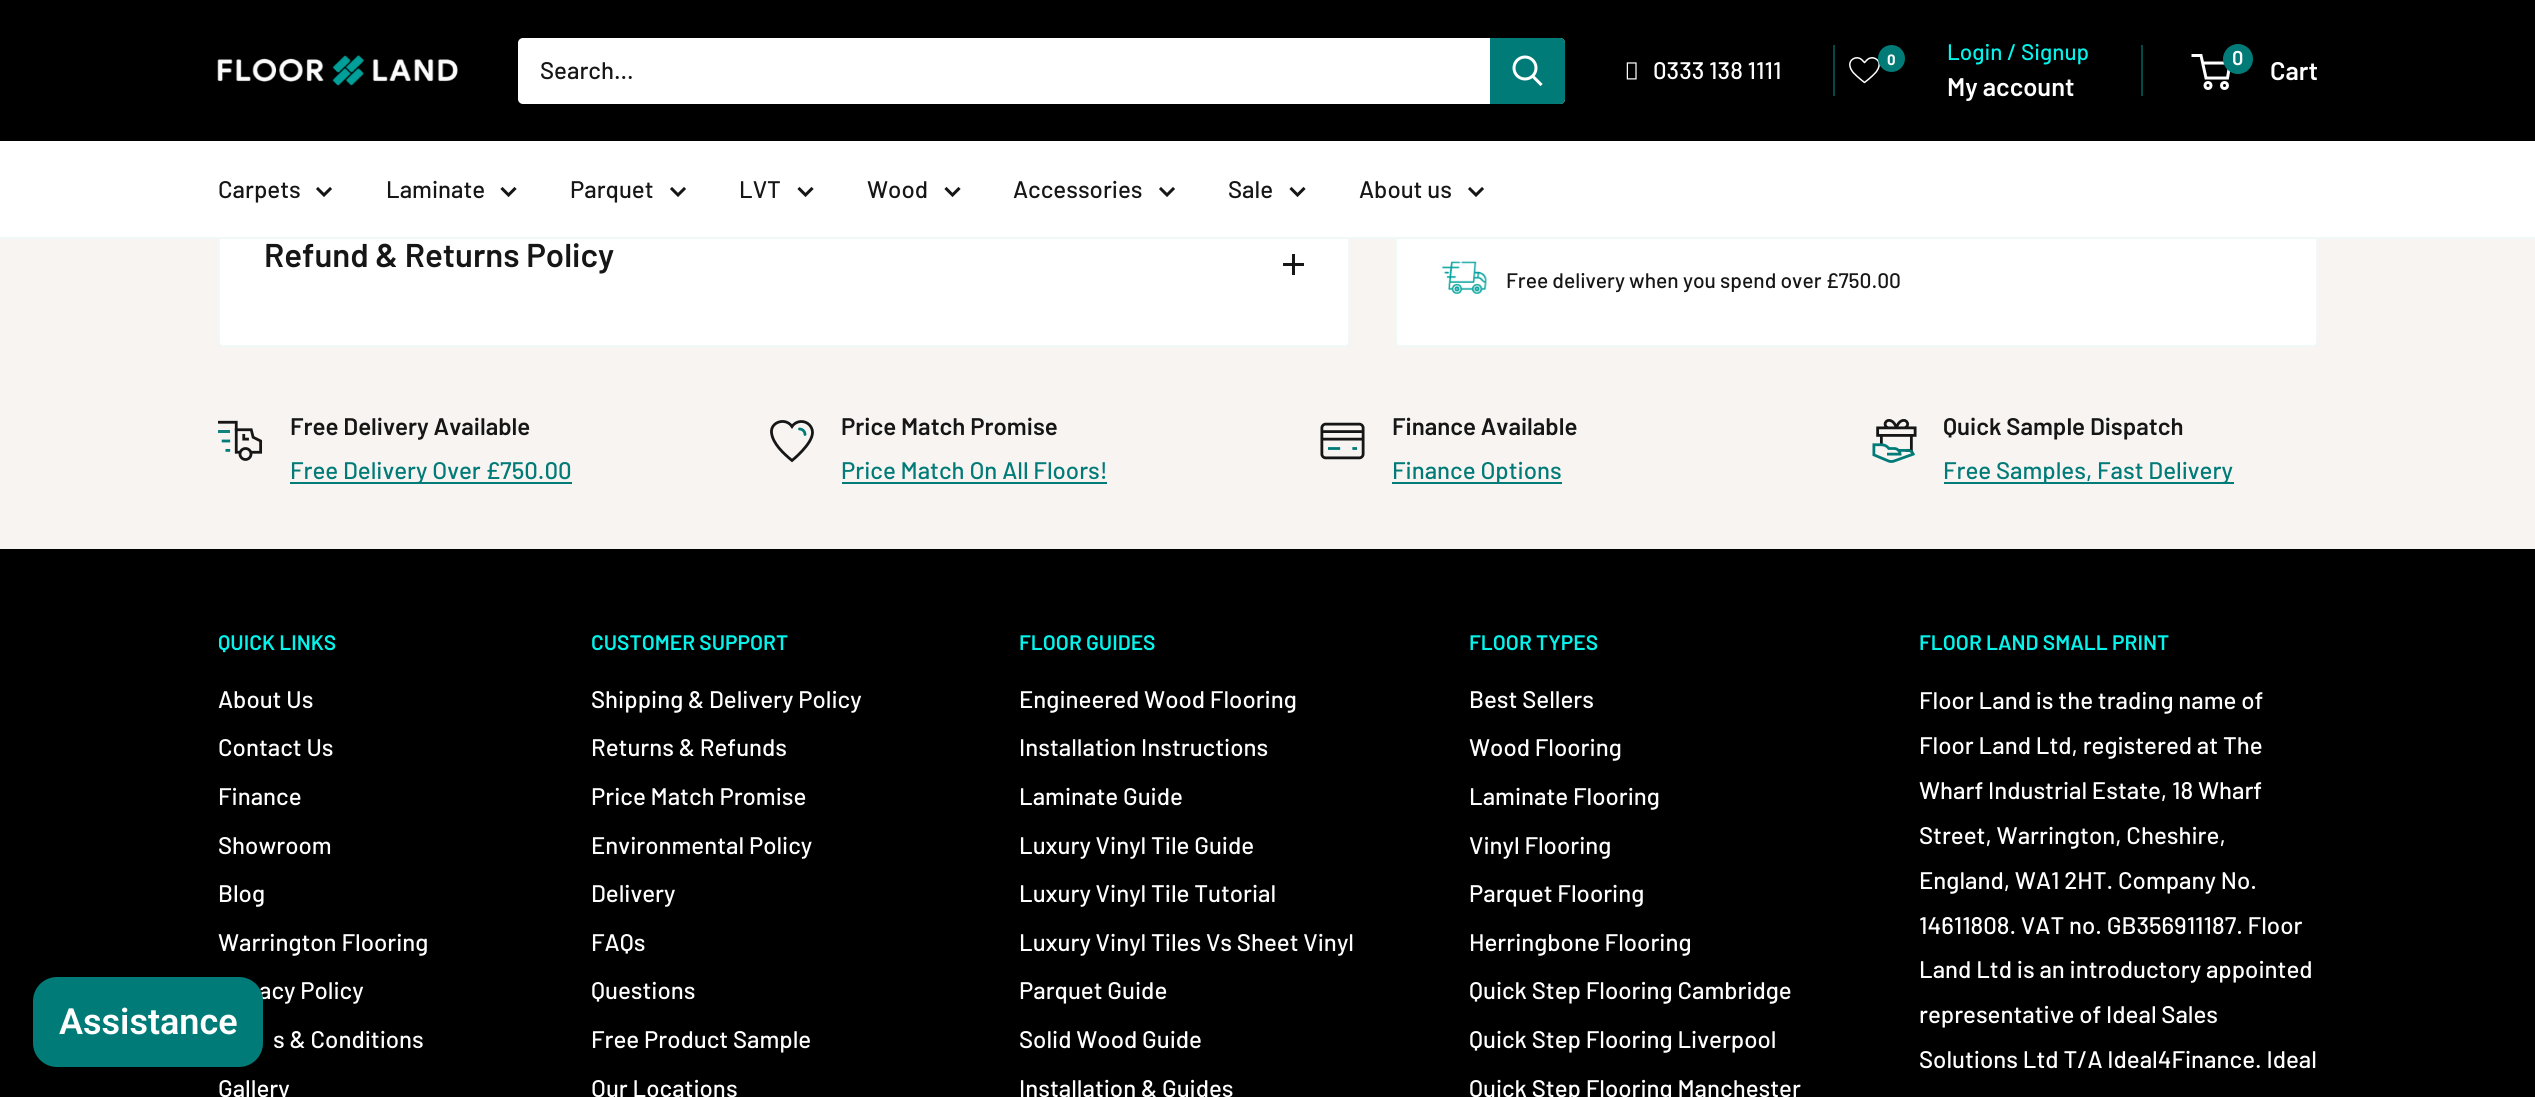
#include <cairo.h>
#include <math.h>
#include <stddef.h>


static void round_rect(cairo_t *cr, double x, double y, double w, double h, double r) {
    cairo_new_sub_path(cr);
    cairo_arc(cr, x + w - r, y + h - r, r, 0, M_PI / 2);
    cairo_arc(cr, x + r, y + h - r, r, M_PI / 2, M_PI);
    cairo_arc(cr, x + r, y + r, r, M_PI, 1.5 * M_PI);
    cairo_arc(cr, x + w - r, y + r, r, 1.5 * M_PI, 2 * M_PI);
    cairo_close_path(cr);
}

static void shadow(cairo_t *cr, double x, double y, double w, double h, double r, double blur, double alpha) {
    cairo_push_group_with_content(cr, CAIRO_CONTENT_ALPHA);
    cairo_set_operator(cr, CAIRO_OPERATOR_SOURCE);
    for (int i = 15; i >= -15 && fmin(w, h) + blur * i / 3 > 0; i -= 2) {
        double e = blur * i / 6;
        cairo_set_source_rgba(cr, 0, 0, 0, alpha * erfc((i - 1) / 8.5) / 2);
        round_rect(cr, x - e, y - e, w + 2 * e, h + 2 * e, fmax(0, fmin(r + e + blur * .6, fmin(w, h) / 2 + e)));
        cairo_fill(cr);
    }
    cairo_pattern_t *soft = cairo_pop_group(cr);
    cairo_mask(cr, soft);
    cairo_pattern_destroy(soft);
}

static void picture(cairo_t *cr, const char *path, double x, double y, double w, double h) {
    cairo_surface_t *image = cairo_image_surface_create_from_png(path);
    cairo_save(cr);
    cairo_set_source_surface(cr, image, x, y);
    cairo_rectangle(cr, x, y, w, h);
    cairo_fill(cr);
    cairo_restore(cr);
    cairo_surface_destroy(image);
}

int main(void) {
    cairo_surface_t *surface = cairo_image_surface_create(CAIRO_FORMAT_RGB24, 2535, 1097);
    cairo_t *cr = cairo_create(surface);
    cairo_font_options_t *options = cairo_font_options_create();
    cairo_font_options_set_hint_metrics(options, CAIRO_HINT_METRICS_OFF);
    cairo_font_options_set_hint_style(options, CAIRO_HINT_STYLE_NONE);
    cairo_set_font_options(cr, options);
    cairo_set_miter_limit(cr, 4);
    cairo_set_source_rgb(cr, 0.969, 0.957, 0.949);
    cairo_paint(cr);
    cairo_set_source_rgb(cr, 1, 1, 1);
    round_rect(cr, 1396, -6, 921, 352, 4);
    cairo_fill_preserve(cr);
    cairo_set_source_rgb(cr, 0.945, 0.969, 0.969);
    cairo_stroke(cr);
    cairo_set_source_rgb(cr, 0, 0, 0);
    cairo_rectangle(cr, 0, 0, 2535, 141);
    cairo_fill(cr);
    picture(cr, "img1.png", 217, 55, 241, 31);
    cairo_set_source_rgb(cr, 1, 1, 1);
    round_rect(cr, 518, 38, 1047, 66, 5);
    cairo_fill(cr);
    cairo_select_font_face(cr, "Barlow Medium", CAIRO_FONT_SLANT_NORMAL, CAIRO_FONT_WEIGHT_NORMAL);
    cairo_set_font_size(cr, 24);
    cairo_set_source_rgb(cr, 0.086, 0.086, 0.086);
    cairo_move_to(cr, 540, 79);
    cairo_show_text(cr, "Search...");
    cairo_set_source_rgb(cr, 0.004, 0.482, 0.467);
    cairo_new_path(cr);
    cairo_move_to(cr, 1490, 38);
    cairo_line_to(cr, 1560, 38);
    cairo_curve_to(cr, 1563, 38, 1565, 40, 1565, 43);
    cairo_line_to(cr, 1565, 99);
    cairo_curve_to(cr, 1565, 102, 1563, 104, 1560, 104);
    cairo_line_to(cr, 1490, 104);
    cairo_close_path(cr);
    cairo_fill(cr);
    cairo_new_path(cr);
    cairo_move_to(cr, 1540.5, 84);
    cairo_line_to(cr, 1533, 76.5);
    cairo_set_source_rgb(cr, 1, 1, 1);
    cairo_set_line_width(cr, 3);
    cairo_set_line_cap(cr, CAIRO_LINE_CAP_SQUARE);
    cairo_stroke(cr);
    cairo_arc(cr, 1525, 68, 11, 0, 2 * M_PI);
    cairo_set_line_cap(cr, CAIRO_LINE_CAP_BUTT);
    cairo_stroke(cr);
    picture(cr, "img2.png", 1626, 62, 11, 18);
    cairo_move_to(cr, 1653, 79);
    cairo_show_text(cr, "0333 138 1111");
    cairo_set_source_rgb(cr, 0.008, 0.286, 0.278);
    cairo_rectangle(cr, 1833, 45, 2, 51);
    cairo_fill(cr);
    picture(cr, "img3.png", 1849, 57, 31, 27);
    cairo_set_source_rgb(cr, 0.004, 0.482, 0.467);
    cairo_arc(cr, 1891.5, 58.5, 13.5, 0, 2 * M_PI);
    cairo_fill(cr);
    cairo_select_font_face(cr, "Barlow", CAIRO_FONT_SLANT_NORMAL, CAIRO_FONT_WEIGHT_BOLD);
    cairo_set_font_size(cr, 15);
    cairo_set_source_rgb(cr, 1, 1, 1);
    cairo_move_to(cr, 1887, 65);
    cairo_show_text(cr, "0");
    cairo_select_font_face(cr, "Barlow Medium", CAIRO_FONT_SLANT_NORMAL, CAIRO_FONT_WEIGHT_NORMAL);
    cairo_set_font_size(cr, 22.5);
    cairo_set_source_rgb(cr, 0.027, 0.953, 0.922);
    cairo_move_to(cr, 1947, 60);
    cairo_show_text(cr, "Login / Signup");
    cairo_set_source_rgb(cr, 0.008, 0.286, 0.278);
    cairo_rectangle(cr, 2141, 45, 2, 51);
    cairo_fill(cr);
    cairo_select_font_face(cr, "Barlow SemiBold", CAIRO_FONT_SLANT_NORMAL, CAIRO_FONT_WEIGHT_NORMAL);
    cairo_set_font_size(cr, 25.5);
    cairo_set_source_rgb(cr, 1, 1, 1);
    cairo_move_to(cr, 1947, 96);
    cairo_show_text(cr, "My account");
    cairo_new_path(cr);
    cairo_arc(cr, 2208, 85.5, 3, 0, 2 * M_PI);
    cairo_stroke(cr);
    cairo_arc(cr, 2224.5, 85.5, 3, 0, 2 * M_PI);
    cairo_stroke(cr);
    cairo_new_path(cr);
    cairo_move_to(cr, 2202.5, 63);
    cairo_line_to(cr, 2230, 63);
    cairo_line_to(cr, 2227.5, 78);
    cairo_line_to(cr, 2206, 78);
    cairo_line_to(cr, 2201, 55.5);
    cairo_line_to(cr, 2191.5, 55.5);
    cairo_stroke(cr);
    cairo_set_source_rgb(cr, 0.004, 0.482, 0.467);
    cairo_arc(cr, 2238, 59, 15, 0, 2 * M_PI);
    cairo_fill(cr);
    cairo_set_font_size(cr, 20);
    cairo_set_source_rgb(cr, 1, 1, 1);
    cairo_move_to(cr, 2232, 65);
    cairo_show_text(cr, "0");
    cairo_set_font_size(cr, 25.5);
    cairo_move_to(cr, 2270, 80);
    cairo_show_text(cr, "Cart");
    round_rect(cr, 219, 184, 1130, 162, 4);
    cairo_fill_preserve(cr);
    cairo_set_source_rgb(cr, 0.945, 0.969, 0.969);
    cairo_set_line_width(cr, 2);
    cairo_stroke(cr);
    cairo_set_source_rgb(cr, 1, 1, 1);
    cairo_rectangle(cr, 0, 141, 2535, 96);
    cairo_fill(cr);
    cairo_set_source_rgb(cr, 0.945, 0.969, 0.969);
    cairo_rectangle(cr, 0, 237, 2535, 2);
    cairo_fill(cr);
    cairo_select_font_face(cr, "Barlow Medium", CAIRO_FONT_SLANT_NORMAL, CAIRO_FONT_WEIGHT_NORMAL);
    cairo_set_font_size(cr, 24);
    cairo_set_source_rgb(cr, 0.086, 0.086, 0.086);
    cairo_move_to(cr, 218, 198);
    cairo_show_text(cr, "Carpets");
    cairo_new_path(cr);
    cairo_move_to(cr, 330, 189);
    cairo_line_to(cr, 324, 195);
    cairo_line_to(cr, 318, 189);
    cairo_set_line_width(cr, 3);
    cairo_set_line_cap(cr, CAIRO_LINE_CAP_SQUARE);
    cairo_stroke(cr);
    cairo_move_to(cr, 386, 198);
    cairo_show_text(cr, "Laminate");
    cairo_new_path(cr);
    cairo_move_to(cr, 514.5, 189);
    cairo_line_to(cr, 508.5, 195);
    cairo_line_to(cr, 502.5, 189);
    cairo_stroke(cr);
    cairo_move_to(cr, 570, 198);
    cairo_show_text(cr, "Parquet");
    cairo_new_path(cr);
    cairo_move_to(cr, 684, 189);
    cairo_line_to(cr, 678, 195);
    cairo_line_to(cr, 672, 189);
    cairo_stroke(cr);
    cairo_move_to(cr, 739, 198);
    cairo_show_text(cr, "LVT");
    cairo_new_path(cr);
    cairo_move_to(cr, 811.5, 189);
    cairo_line_to(cr, 805.5, 195);
    cairo_line_to(cr, 799.5, 189);
    cairo_stroke(cr);
    cairo_move_to(cr, 867, 198);
    cairo_show_text(cr, "Wood");
    cairo_new_path(cr);
    cairo_move_to(cr, 958.5, 189);
    cairo_line_to(cr, 952.5, 195);
    cairo_line_to(cr, 946.5, 189);
    cairo_stroke(cr);
    cairo_move_to(cr, 1013, 198);
    cairo_show_text(cr, "Accessories");
    cairo_new_path(cr);
    cairo_move_to(cr, 1173, 189);
    cairo_line_to(cr, 1167, 195);
    cairo_line_to(cr, 1161, 189);
    cairo_stroke(cr);
    cairo_move_to(cr, 1228, 198);
    cairo_show_text(cr, "Sale");
    cairo_new_path(cr);
    cairo_move_to(cr, 1303.5, 189);
    cairo_line_to(cr, 1297.5, 195);
    cairo_line_to(cr, 1291.5, 189);
    cairo_stroke(cr);
    cairo_move_to(cr, 1359, 198);
    cairo_show_text(cr, "About us");
    cairo_new_path(cr);
    cairo_move_to(cr, 1482, 189);
    cairo_line_to(cr, 1476, 195);
    cairo_line_to(cr, 1470, 189);
    cairo_stroke(cr);
    cairo_select_font_face(cr, "Barlow SemiBold", CAIRO_FONT_SLANT_NORMAL, CAIRO_FONT_WEIGHT_NORMAL);
    cairo_set_font_size(cr, 33);
    cairo_move_to(cr, 264, 267);
    cairo_show_text(cr, "Refund & Returns Policy");
    cairo_rectangle(cr, 1292, 254, 3, 21);
    cairo_fill(cr);
    cairo_rectangle(cr, 1283, 263, 21, 3);
    cairo_fill(cr);
    picture(cr, "img4.png", 1441, 261, 46, 33);
    cairo_select_font_face(cr, "Barlow Medium", CAIRO_FONT_SLANT_NORMAL, CAIRO_FONT_WEIGHT_NORMAL);
    cairo_set_font_size(cr, 21);
    cairo_move_to(cr, 1506, 288);
    cairo_show_text(cr, "Free delivery when you spend over £750.00");
    picture(cr, "img5.png", 218, 420, 45, 41);
    cairo_select_font_face(cr, "Barlow SemiBold", CAIRO_FONT_SLANT_NORMAL, CAIRO_FONT_WEIGHT_NORMAL);
    cairo_set_font_size(cr, 24);
    cairo_move_to(cr, 290, 435);
    cairo_show_text(cr, "Free Delivery Available");
    cairo_set_source_rgb(cr, 0.004, 0.482, 0.467);
    cairo_rectangle(cr, 290, 482, 282, 2);
    cairo_fill(cr);
    cairo_select_font_face(cr, "Barlow Medium", CAIRO_FONT_SLANT_NORMAL, CAIRO_FONT_WEIGHT_NORMAL);
    cairo_move_to(cr, 290, 479);
    cairo_show_text(cr, "Free Delivery Over £750.00");
    cairo_new_path(cr);
    cairo_move_to(cr, 801.5, 421.5);
    cairo_curve_to(cr, 797.5, 421.5, 794, 423.5, 792, 426.5);
    cairo_curve_to(cr, 785.5, 417, 770.5, 422, 771.5, 432.5);
    cairo_curve_to(cr, 772.5, 443.5, 784, 454, 792, 460.5);
    cairo_curve_to(cr, 792, 460.5, 812.5, 444, 812.5, 432.5);
    cairo_curve_to(cr, 812.5, 426.5, 807.5, 421.5, 801.5, 421.5);
    cairo_close_path(cr);
    cairo_set_source_rgb(cr, 0.086, 0.086, 0.086);
    cairo_set_line_width(cr, 2.8);
    cairo_stroke(cr);
    cairo_new_path(cr);
    cairo_move_to(cr, 799.5, 429);
    cairo_curve_to(cr, 802.5, 429, 805, 431.5, 805, 434.5);
    cairo_set_source_rgb(cr, 0.004, 0.482, 0.467);
    cairo_set_line_cap(cr, CAIRO_LINE_CAP_ROUND);
    cairo_stroke(cr);
    cairo_select_font_face(cr, "Barlow SemiBold", CAIRO_FONT_SLANT_NORMAL, CAIRO_FONT_WEIGHT_NORMAL);
    cairo_set_source_rgb(cr, 0.086, 0.086, 0.086);
    cairo_move_to(cr, 841, 435);
    cairo_show_text(cr, "Price Match Promise");
    cairo_select_font_face(cr, "Barlow Medium", CAIRO_FONT_SLANT_NORMAL, CAIRO_FONT_WEIGHT_NORMAL);
    cairo_set_source_rgb(cr, 0.004, 0.482, 0.467);
    cairo_move_to(cr, 841, 479);
    cairo_show_text(cr, "Price Match On All Floors!");
    cairo_rectangle(cr, 842, 482, 265, 2);
    cairo_fill(cr);
    picture(cr, "img6.png", 1320, 422, 45, 38);
    cairo_select_font_face(cr, "Barlow SemiBold", CAIRO_FONT_SLANT_NORMAL, CAIRO_FONT_WEIGHT_NORMAL);
    cairo_set_source_rgb(cr, 0.086, 0.086, 0.086);
    cairo_move_to(cr, 1392, 435);
    cairo_show_text(cr, "Finance Available");
    cairo_set_source_rgb(cr, 0.004, 0.482, 0.467);
    cairo_rectangle(cr, 1392, 482, 170, 2);
    cairo_fill(cr);
    cairo_select_font_face(cr, "Barlow Medium", CAIRO_FONT_SLANT_NORMAL, CAIRO_FONT_WEIGHT_NORMAL);
    cairo_move_to(cr, 1392, 479);
    cairo_show_text(cr, "Finance Options");
    picture(cr, "img7.png", 1872, 419, 45, 44);
    cairo_select_font_face(cr, "Barlow SemiBold", CAIRO_FONT_SLANT_NORMAL, CAIRO_FONT_WEIGHT_NORMAL);
    cairo_set_source_rgb(cr, 0.086, 0.086, 0.086);
    cairo_move_to(cr, 1943, 435);
    cairo_show_text(cr, "Quick Sample Dispatch");
    cairo_set_source_rgb(cr, 0.004, 0.482, 0.467);
    cairo_rectangle(cr, 1944, 482, 290, 2);
    cairo_fill(cr);
    cairo_select_font_face(cr, "Barlow Medium", CAIRO_FONT_SLANT_NORMAL, CAIRO_FONT_WEIGHT_NORMAL);
    cairo_move_to(cr, 1943, 479);
    cairo_show_text(cr, "Free Samples, Fast Delivery");
    cairo_set_source_rgb(cr, 0, 0, 0);
    cairo_rectangle(cr, 0, 549, 2535, 548);
    cairo_fill(cr);
    cairo_set_source_rgb(cr, 0, 0, 0);
    shadow(cr, 33, 977, 230, 90, 24, 4, 0.15);
    cairo_set_source_rgb(cr, 1, 1, 1);
    cairo_move_to(cr, 259, 999);
    cairo_show_text(cr, "acy Policy");
    cairo_set_source_rgb(cr, 0.004, 0.482, 0.467);
    round_rect(cr, 33, 977, 230, 90, 24);
    cairo_fill(cr);
    cairo_select_font_face(cr, "Roboto SemiBold", CAIRO_FONT_SLANT_NORMAL, CAIRO_FONT_WEIGHT_NORMAL);
    cairo_set_font_size(cr, 36);
    cairo_set_source_rgb(cr, 1, 1, 1);
    cairo_move_to(cr, 59, 1034);
    cairo_show_text(cr, "Assistance");
    cairo_select_font_face(cr, "Barlow SemiBold", CAIRO_FONT_SLANT_NORMAL, CAIRO_FONT_WEIGHT_NORMAL);
    cairo_set_font_size(cr, 21);
    cairo_set_source_rgb(cr, 0.027, 0.953, 0.922);
    cairo_move_to(cr, 218, 650);
    cairo_show_text(cr, "QUICK LINKS");
    cairo_select_font_face(cr, "Barlow Medium", CAIRO_FONT_SLANT_NORMAL, CAIRO_FONT_WEIGHT_NORMAL);
    cairo_set_font_size(cr, 24);
    cairo_set_source_rgb(cr, 1, 1, 1);
    cairo_move_to(cr, 218, 708);
    cairo_show_text(cr, "About Us");
    cairo_move_to(cr, 218, 756);
    cairo_show_text(cr, "Contact Us");
    cairo_move_to(cr, 218, 805);
    cairo_show_text(cr, "Finance");
    cairo_move_to(cr, 218, 854);
    cairo_show_text(cr, "Showroom");
    cairo_move_to(cr, 218, 902);
    cairo_show_text(cr, "Blog");
    cairo_move_to(cr, 218, 951);
    cairo_show_text(cr, "Warrington Flooring");
    cairo_move_to(cr, 273, 1048);
    cairo_show_text(cr, "s & Conditions");
    cairo_move_to(cr, 218, 1097);
    cairo_show_text(cr, "Gallery");
    cairo_select_font_face(cr, "Barlow SemiBold", CAIRO_FONT_SLANT_NORMAL, CAIRO_FONT_WEIGHT_NORMAL);
    cairo_set_font_size(cr, 21);
    cairo_set_source_rgb(cr, 0.027, 0.953, 0.922);
    cairo_move_to(cr, 591, 650);
    cairo_show_text(cr, "CUSTOMER SUPPORT");
    cairo_select_font_face(cr, "Barlow Medium", CAIRO_FONT_SLANT_NORMAL, CAIRO_FONT_WEIGHT_NORMAL);
    cairo_set_font_size(cr, 24);
    cairo_set_source_rgb(cr, 1, 1, 1);
    cairo_move_to(cr, 591, 708);
    cairo_show_text(cr, "Shipping & Delivery Policy");
    cairo_move_to(cr, 591, 756);
    cairo_show_text(cr, "Returns & Refunds");
    cairo_move_to(cr, 591, 805);
    cairo_show_text(cr, "Price Match Promise");
    cairo_move_to(cr, 591, 854);
    cairo_show_text(cr, "Environmental Policy");
    cairo_move_to(cr, 591, 902);
    cairo_show_text(cr, "Delivery");
    cairo_move_to(cr, 591, 951);
    cairo_show_text(cr, "FAQs");
    cairo_move_to(cr, 591, 999);
    cairo_show_text(cr, "Questions");
    cairo_move_to(cr, 591, 1048);
    cairo_show_text(cr, "Free Product Sample");
    cairo_move_to(cr, 591, 1097);
    cairo_show_text(cr, "Our Locations");
    cairo_select_font_face(cr, "Barlow SemiBold", CAIRO_FONT_SLANT_NORMAL, CAIRO_FONT_WEIGHT_NORMAL);
    cairo_set_font_size(cr, 21);
    cairo_set_source_rgb(cr, 0.027, 0.953, 0.922);
    cairo_move_to(cr, 1019, 650);
    cairo_show_text(cr, "FLOOR GUIDES");
    cairo_select_font_face(cr, "Barlow Medium", CAIRO_FONT_SLANT_NORMAL, CAIRO_FONT_WEIGHT_NORMAL);
    cairo_set_font_size(cr, 24);
    cairo_set_source_rgb(cr, 1, 1, 1);
    cairo_move_to(cr, 1019, 708);
    cairo_show_text(cr, "Engineered Wood Flooring");
    cairo_move_to(cr, 1019, 756);
    cairo_show_text(cr, "Installation Instructions");
    cairo_move_to(cr, 1019, 805);
    cairo_show_text(cr, "Laminate Guide");
    cairo_move_to(cr, 1019, 854);
    cairo_show_text(cr, "Luxury Vinyl Tile Guide");
    cairo_move_to(cr, 1019, 902);
    cairo_show_text(cr, "Luxury Vinyl Tile Tutorial");
    cairo_move_to(cr, 1019, 951);
    cairo_show_text(cr, "Luxury Vinyl Tiles Vs Sheet Vinyl");
    cairo_move_to(cr, 1019, 999);
    cairo_show_text(cr, "Parquet Guide");
    cairo_move_to(cr, 1019, 1048);
    cairo_show_text(cr, "Solid Wood Guide");
    cairo_move_to(cr, 1019, 1097);
    cairo_show_text(cr, "Installation & Guides");
    cairo_select_font_face(cr, "Barlow SemiBold", CAIRO_FONT_SLANT_NORMAL, CAIRO_FONT_WEIGHT_NORMAL);
    cairo_set_font_size(cr, 21);
    cairo_set_source_rgb(cr, 0.027, 0.953, 0.922);
    cairo_move_to(cr, 1469, 650);
    cairo_show_text(cr, "FLOOR TYPES");
    cairo_select_font_face(cr, "Barlow Medium", CAIRO_FONT_SLANT_NORMAL, CAIRO_FONT_WEIGHT_NORMAL);
    cairo_set_font_size(cr, 24);
    cairo_set_source_rgb(cr, 1, 1, 1);
    cairo_move_to(cr, 1469, 708);
    cairo_show_text(cr, "Best Sellers");
    cairo_move_to(cr, 1469, 756);
    cairo_show_text(cr, "Wood Flooring");
    cairo_move_to(cr, 1469, 805);
    cairo_show_text(cr, "Laminate Flooring");
    cairo_move_to(cr, 1469, 854);
    cairo_show_text(cr, "Vinyl Flooring");
    cairo_move_to(cr, 1469, 902);
    cairo_show_text(cr, "Parquet Flooring");
    cairo_move_to(cr, 1469, 951);
    cairo_show_text(cr, "Herringbone Flooring");
    cairo_move_to(cr, 1469, 999);
    cairo_show_text(cr, "Quick Step Flooring Cambridge");
    cairo_move_to(cr, 1469, 1048);
    cairo_show_text(cr, "Quick Step Flooring Liverpool");
    cairo_move_to(cr, 1469, 1097);
    cairo_show_text(cr, "Quick Step Flooring Manchester");
    cairo_select_font_face(cr, "Barlow SemiBold", CAIRO_FONT_SLANT_NORMAL, CAIRO_FONT_WEIGHT_NORMAL);
    cairo_set_font_size(cr, 21);
    cairo_set_source_rgb(cr, 0.027, 0.953, 0.922);
    cairo_move_to(cr, 1919, 650);
    cairo_show_text(cr, "FLOOR LAND SMALL PRINT");
    cairo_select_font_face(cr, "Barlow Medium", CAIRO_FONT_SLANT_NORMAL, CAIRO_FONT_WEIGHT_NORMAL);
    cairo_set_font_size(cr, 24);
    cairo_set_source_rgb(cr, 1, 1, 1);
    cairo_move_to(cr, 1919, 709);
    cairo_show_text(cr, "Floor Land is the trading name of");
    cairo_move_to(cr, 1919, 754);
    cairo_show_text(cr, "Floor Land Ltd, registered at The");
    cairo_move_to(cr, 1919, 799);
    cairo_show_text(cr, "Wharf Industrial Estate, 18 Wharf");
    cairo_move_to(cr, 1919, 844);
    cairo_show_text(cr, "Street, Warrington, Cheshire,");
    cairo_move_to(cr, 1919, 889);
    cairo_show_text(cr, "England, WA1 2HT. Company No.");
    cairo_move_to(cr, 1919, 934);
    cairo_show_text(cr, "14611808. VAT no. GB356911187. Floor");
    cairo_move_to(cr, 1919, 978);
    cairo_show_text(cr, "Land Ltd is an introductory appointed");
    cairo_move_to(cr, 1919, 1023);
    cairo_show_text(cr, "representative of Ideal Sales");
    cairo_move_to(cr, 1919, 1068);
    cairo_show_text(cr, "Solutions Ltd T/A Ideal4Finance. Ideal");
    cairo_surface_write_to_png(surface, "page.png");
    cairo_font_options_destroy(options);
    cairo_destroy(cr);
    cairo_surface_destroy(surface);
    return 0;
}
